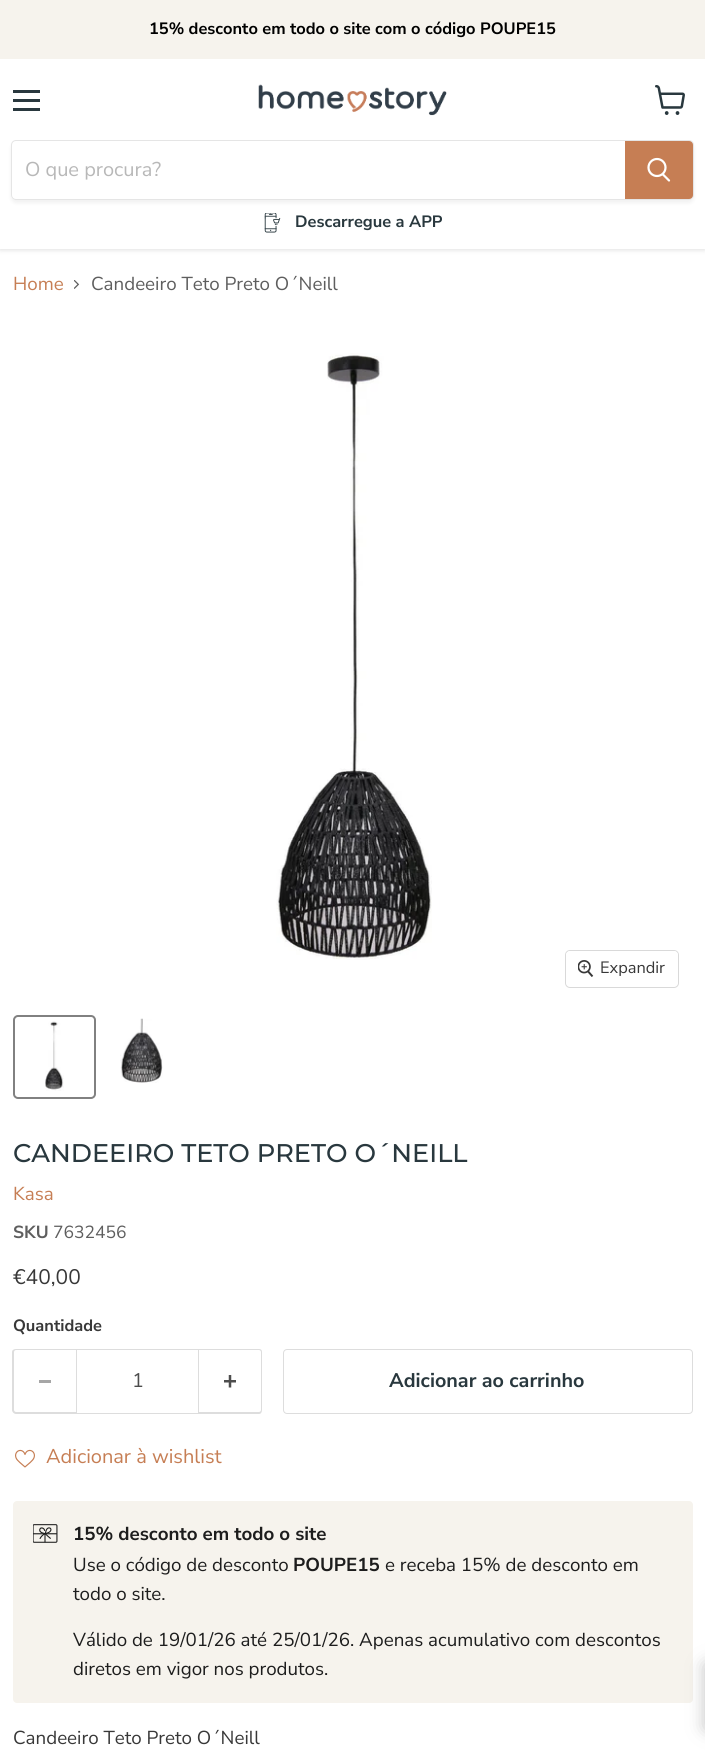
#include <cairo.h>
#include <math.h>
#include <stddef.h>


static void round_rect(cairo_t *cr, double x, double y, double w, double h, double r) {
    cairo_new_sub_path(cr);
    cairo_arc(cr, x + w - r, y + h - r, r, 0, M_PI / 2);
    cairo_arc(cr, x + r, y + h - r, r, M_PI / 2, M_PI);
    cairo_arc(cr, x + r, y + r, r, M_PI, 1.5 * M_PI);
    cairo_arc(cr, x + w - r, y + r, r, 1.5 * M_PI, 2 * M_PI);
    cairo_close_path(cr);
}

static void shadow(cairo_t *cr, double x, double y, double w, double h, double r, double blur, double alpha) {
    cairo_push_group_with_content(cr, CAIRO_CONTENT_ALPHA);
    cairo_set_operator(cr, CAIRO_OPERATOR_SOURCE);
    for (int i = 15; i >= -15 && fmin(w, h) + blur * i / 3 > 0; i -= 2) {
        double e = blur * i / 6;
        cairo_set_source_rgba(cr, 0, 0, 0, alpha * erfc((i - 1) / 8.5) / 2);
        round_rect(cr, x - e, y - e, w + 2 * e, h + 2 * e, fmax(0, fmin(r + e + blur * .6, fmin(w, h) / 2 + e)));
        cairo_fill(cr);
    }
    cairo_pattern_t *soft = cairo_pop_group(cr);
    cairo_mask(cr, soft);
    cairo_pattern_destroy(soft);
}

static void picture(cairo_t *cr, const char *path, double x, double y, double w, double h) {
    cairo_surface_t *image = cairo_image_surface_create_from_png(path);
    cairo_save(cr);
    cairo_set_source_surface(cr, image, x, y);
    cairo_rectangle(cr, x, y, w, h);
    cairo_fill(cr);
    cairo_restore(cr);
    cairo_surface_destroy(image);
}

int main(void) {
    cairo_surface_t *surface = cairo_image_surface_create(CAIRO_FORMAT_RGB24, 705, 1764);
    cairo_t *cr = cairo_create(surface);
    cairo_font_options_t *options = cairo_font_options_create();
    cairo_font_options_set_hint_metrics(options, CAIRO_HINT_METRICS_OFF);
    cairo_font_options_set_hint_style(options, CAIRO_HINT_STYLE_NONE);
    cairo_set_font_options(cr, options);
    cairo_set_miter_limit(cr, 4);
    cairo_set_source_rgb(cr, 1, 1, 1);
    cairo_paint(cr);
    cairo_set_source_rgb(cr, 0.502, 0.502, 0.502);
    shadow(cr, 0, 60, 705, 190, 0, 2.5, 0.25);
    cairo_set_source_rgb(cr, 0.961, 0.953, 0.929);
    cairo_rectangle(cr, 0, 0, 705, 59);
    cairo_fill(cr);
    cairo_select_font_face(cr, "Nunito Sans", CAIRO_FONT_SLANT_NORMAL, CAIRO_FONT_WEIGHT_BOLD);
    cairo_set_font_size(cr, 16.4);
    cairo_set_source_rgb(cr, 0, 0, 0);
    cairo_move_to(cr, 149, 34);
    cairo_show_text(cr, "15% desconto em todo o site com o código POUPE15");
    cairo_set_source_rgb(cr, 1, 1, 1);
    cairo_rectangle(cr, 0, 59, 705, 190);
    cairo_fill(cr);
    cairo_set_source_rgb(cr, 0.161, 0.22, 0.243);
    cairo_rectangle(cr, 13, 90, 27, 3);
    cairo_fill(cr);
    cairo_rectangle(cr, 13, 99, 27, 3);
    cairo_fill(cr);
    cairo_rectangle(cr, 13, 108, 27, 3);
    cairo_fill(cr);
    picture(cr, "img1.png", 655, 85, 30, 30);
    picture(cr, "img2.png", 258, 84, 189, 32);
    cairo_save(cr);
    cairo_set_fill_rule(cr, CAIRO_FILL_RULE_EVEN_ODD);
    cairo_new_path(cr);
    cairo_move_to(cr, 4, 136);
    cairo_line_to(cr, 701, 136);
    cairo_line_to(cr, 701, 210);
    cairo_line_to(cr, 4, 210);
    cairo_close_path(cr);
    cairo_move_to(cr, 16, 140);
    cairo_line_to(cr, 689, 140);
    cairo_curve_to(cr, 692, 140, 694, 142, 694, 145);
    cairo_line_to(cr, 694, 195);
    cairo_curve_to(cr, 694, 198, 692, 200, 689, 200);
    cairo_line_to(cr, 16, 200);
    cairo_curve_to(cr, 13, 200, 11, 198, 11, 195);
    cairo_line_to(cr, 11, 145);
    cairo_curve_to(cr, 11, 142, 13, 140, 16, 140);
    cairo_close_path(cr);
    cairo_clip(cr);
    cairo_set_source_rgb(cr, 0.502, 0.502, 0.502);
    shadow(cr, 11, 143, 683, 60, 5, 2, 0.11);
    cairo_restore(cr);
    round_rect(cr, 11.5, 140.5, 682, 59, 4.5);
    cairo_set_source_rgba(cr, 0.502, 0.502, 0.502, 0.2);
    cairo_set_line_width(cr, 1);
    cairo_stroke(cr);
    cairo_select_font_face(cr, "Nunito Sans", CAIRO_FONT_SLANT_NORMAL, CAIRO_FONT_WEIGHT_NORMAL);
    cairo_set_font_size(cr, 20);
    cairo_set_source_rgb(cr, 0.722, 0.722, 0.722);
    cairo_move_to(cr, 25, 176);
    cairo_show_text(cr, "O que procura?");
    cairo_set_source_rgb(cr, 0.776, 0.494, 0.329);
    cairo_new_path(cr);
    cairo_move_to(cr, 625.5, 141.5);
    cairo_line_to(cr, 689, 141.5);
    cairo_curve_to(cr, 691, 141.5, 692.5, 143, 692.5, 145);
    cairo_line_to(cr, 692.5, 195);
    cairo_curve_to(cr, 692.5, 197, 691, 198.5, 689, 198.5);
    cairo_line_to(cr, 625.5, 198.5);
    cairo_close_path(cr);
    cairo_fill_preserve(cr);
    cairo_stroke(cr);
    cairo_new_path(cr);
    cairo_move_to(cr, 669, 180.5);
    cairo_line_to(cr, 663, 174.5);
    cairo_set_source_rgb(cr, 1, 1, 1);
    cairo_set_line_width(cr, 2.2);
    cairo_set_line_cap(cr, CAIRO_LINE_CAP_ROUND);
    cairo_stroke(cr);
    cairo_arc(cr, 657, 167.5, 8.5, 0, 2 * M_PI);
    cairo_set_line_cap(cr, CAIRO_LINE_CAP_BUTT);
    cairo_stroke(cr);
    picture(cr, "img3.png", 264, 213, 17, 20);
    cairo_select_font_face(cr, "Nunito Sans", CAIRO_FONT_SLANT_NORMAL, CAIRO_FONT_WEIGHT_BOLD);
    cairo_set_font_size(cr, 16.4);
    cairo_set_source_rgb(cr, 0.161, 0.22, 0.243);
    cairo_move_to(cr, 295, 227);
    cairo_show_text(cr, "Descarregue a APP");
    cairo_select_font_face(cr, "Nunito Sans", CAIRO_FONT_SLANT_NORMAL, CAIRO_FONT_WEIGHT_NORMAL);
    cairo_set_font_size(cr, 18.75);
    cairo_set_source_rgb(cr, 0.776, 0.494, 0.329);
    cairo_move_to(cr, 13, 290);
    cairo_show_text(cr, "Home");
    picture(cr, "img4.png", 74, 280, 6, 9);
    cairo_set_source_rgb(cr, 0.369, 0.369, 0.369);
    cairo_move_to(cr, 91, 290);
    cairo_show_text(cr, "Candeeiro Teto Preto O´Neill");
    picture(cr, "img5.png", 276, 353, 156, 607);
    round_rect(cr, 565.5, 950.5, 113, 37, 4.5);
    cairo_set_source_rgb(cr, 0.851, 0.851, 0.851);
    cairo_set_line_width(cr, 1);
    cairo_stroke(cr);
    cairo_set_source_rgba(cr, 1, 1, 1, 0.9);
    round_rect(cr, 566, 951, 112, 35, 4);
    cairo_fill(cr);
    picture(cr, "img6.png", 578, 960, 16, 17);
    cairo_set_font_size(cr, 16.4);
    cairo_set_source_rgb(cr, 0.22, 0.22, 0.22);
    cairo_move_to(cr, 600, 973);
    cairo_show_text(cr, "Expandir");
    round_rect(cr, 14, 1016, 81, 82, 4);
    cairo_set_source_rgb(cr, 0.506, 0.506, 0.506);
    cairo_set_line_width(cr, 2);
    cairo_stroke(cr);
    picture(cr, "img7.png", 45, 1021, 19, 70);
    picture(cr, "img8.png", 120, 1018, 43, 65);
    cairo_select_font_face(cr, "Montserrat Medium", CAIRO_FONT_SLANT_NORMAL, CAIRO_FONT_WEIGHT_NORMAL);
    cairo_set_font_size(cr, 25.6);
    cairo_set_source_rgb(cr, 0.161, 0.22, 0.243);
    cairo_move_to(cr, 13, 1162);
    cairo_show_text(cr, "CANDEEIRO TETO PRETO O´NEILL");
    cairo_select_font_face(cr, "Nunito Sans", CAIRO_FONT_SLANT_NORMAL, CAIRO_FONT_WEIGHT_NORMAL);
    cairo_set_font_size(cr, 18.75);
    cairo_set_source_rgb(cr, 0.776, 0.494, 0.329);
    cairo_move_to(cr, 13, 1200);
    cairo_show_text(cr, "Kasa");
    cairo_select_font_face(cr, "Nunito Sans", CAIRO_FONT_SLANT_NORMAL, CAIRO_FONT_WEIGHT_BOLD);
    cairo_set_font_size(cr, 17.5);
    cairo_set_source_rgb(cr, 0.369, 0.369, 0.369);
    cairo_move_to(cr, 13, 1238);
    cairo_show_text(cr, "SKU");
    cairo_select_font_face(cr, "Nunito Sans", CAIRO_FONT_SLANT_NORMAL, CAIRO_FONT_WEIGHT_NORMAL);
    cairo_move_to(cr, 53, 1238);
    cairo_show_text(cr, "7632456");
    cairo_set_font_size(cr, 21);
    cairo_set_source_rgb(cr, 0.22, 0.22, 0.22);
    cairo_move_to(cr, 13, 1284);
    cairo_show_text(cr, "€40,00");
    cairo_select_font_face(cr, "Nunito Sans", CAIRO_FONT_SLANT_NORMAL, CAIRO_FONT_WEIGHT_BOLD);
    cairo_set_font_size(cr, 16.4);
    cairo_move_to(cr, 13, 1331);
    cairo_show_text(cr, "Quantidade");
    cairo_set_source_rgb(cr, 0.867, 0.867, 0.867);
    cairo_set_fill_rule(cr, CAIRO_FILL_RULE_EVEN_ODD);
    cairo_new_path(cr);
    cairo_move_to(cr, 16, 1349);
    cairo_line_to(cr, 76, 1349);
    cairo_line_to(cr, 76, 1414);
    cairo_line_to(cr, 16, 1414);
    cairo_curve_to(cr, 14, 1414, 12, 1412, 12, 1410);
    cairo_line_to(cr, 12, 1352);
    cairo_curve_to(cr, 12, 1350, 14, 1349, 16, 1349);
    cairo_close_path(cr);
    cairo_move_to(cr, 16, 1350);
    cairo_line_to(cr, 76, 1350);
    cairo_line_to(cr, 76, 1412);
    cairo_line_to(cr, 16, 1412);
    cairo_curve_to(cr, 15, 1412, 14, 1411, 14, 1410);
    cairo_line_to(cr, 14, 1352);
    cairo_curve_to(cr, 14, 1351, 15, 1350, 16, 1350);
    cairo_close_path(cr);
    cairo_fill(cr);
    cairo_set_source_rgb(cr, 0.651, 0.651, 0.651);
    cairo_rectangle(cr, 39, 1380, 12, 3);
    cairo_fill(cr);
    cairo_rectangle(cr, 76.5, 1349.5, 122, 64);
    cairo_set_source_rgb(cr, 0.867, 0.867, 0.867);
    cairo_set_line_width(cr, 1);
    cairo_stroke(cr);
    cairo_select_font_face(cr, "Nunito Sans", CAIRO_FONT_SLANT_NORMAL, CAIRO_FONT_WEIGHT_NORMAL);
    cairo_set_font_size(cr, 19.75);
    cairo_set_source_rgb(cr, 0.302, 0.302, 0.302);
    cairo_move_to(cr, 132, 1387);
    cairo_show_text(cr, "1");
    cairo_set_source_rgb(cr, 0.867, 0.867, 0.867);
    cairo_new_path(cr);
    cairo_move_to(cr, 199, 1349);
    cairo_line_to(cr, 259, 1349);
    cairo_curve_to(cr, 261, 1349, 262, 1350, 262, 1352);
    cairo_line_to(cr, 262, 1410);
    cairo_curve_to(cr, 262, 1412, 261, 1414, 259, 1414);
    cairo_line_to(cr, 199, 1414);
    cairo_close_path(cr);
    cairo_move_to(cr, 199, 1350);
    cairo_line_to(cr, 259, 1350);
    cairo_curve_to(cr, 260, 1350, 261, 1351, 261, 1352);
    cairo_line_to(cr, 261, 1410);
    cairo_curve_to(cr, 261, 1411, 260, 1412, 259, 1412);
    cairo_line_to(cr, 199, 1412);
    cairo_close_path(cr);
    cairo_fill(cr);
    picture(cr, "img9.png", 224, 1375, 12, 13);
    round_rect(cr, 283.5, 1349.5, 409, 64, 3.5);
    cairo_stroke(cr);
    cairo_select_font_face(cr, "Nunito Sans", CAIRO_FONT_SLANT_NORMAL, CAIRO_FONT_WEIGHT_BOLD);
    cairo_set_source_rgb(cr, 0.161, 0.22, 0.243);
    cairo_move_to(cr, 389, 1387);
    cairo_show_text(cr, "Adicionar ao carrinho");
    picture(cr, "img10.png", 15, 1449, 20, 19);
    cairo_select_font_face(cr, "Nunito Sans", CAIRO_FONT_SLANT_NORMAL, CAIRO_FONT_WEIGHT_NORMAL);
    cairo_set_font_size(cr, 20);
    cairo_set_source_rgb(cr, 0.776, 0.494, 0.329);
    cairo_move_to(cr, 46, 1463);
    cairo_show_text(cr, "Adicionar à wishlist");
    cairo_set_source_rgb(cr, 0.961, 0.953, 0.929);
    round_rect(cr, 13, 1501, 680, 202, 4);
    cairo_fill(cr);
    picture(cr, "img11.png", 33, 1524, 25, 19);
    cairo_select_font_face(cr, "Nunito Sans", CAIRO_FONT_SLANT_NORMAL, CAIRO_FONT_WEIGHT_BOLD);
    cairo_set_font_size(cr, 18.75);
    cairo_set_source_rgb(cr, 0.114, 0.114, 0.114);
    cairo_move_to(cr, 73, 1540);
    cairo_show_text(cr, "15% desconto em todo o site");
    cairo_select_font_face(cr, "Nunito Sans", CAIRO_FONT_SLANT_NORMAL, CAIRO_FONT_WEIGHT_NORMAL);
    cairo_move_to(cr, 73, 1571);
    cairo_show_text(cr, "Use o código de desconto");
    cairo_select_font_face(cr, "Nunito Sans", CAIRO_FONT_SLANT_NORMAL, CAIRO_FONT_WEIGHT_BOLD);
    cairo_move_to(cr, 293, 1571);
    cairo_show_text(cr, "POUPE15");
    cairo_select_font_face(cr, "Nunito Sans", CAIRO_FONT_SLANT_NORMAL, CAIRO_FONT_WEIGHT_NORMAL);
    cairo_move_to(cr, 385, 1571);
    cairo_show_text(cr, "e receba 15% de desconto em");
    cairo_move_to(cr, 73, 1600);
    cairo_show_text(cr, "todo o site.");
    cairo_move_to(cr, 73, 1646);
    cairo_show_text(cr, "Válido de 19/01/26 até 25/01/26. Apenas acumulativo com descontos");
    cairo_move_to(cr, 73, 1675);
    cairo_show_text(cr, "diretos em vigor nos produtos.");
    cairo_set_source_rgb(cr, 0.22, 0.22, 0.22);
    cairo_move_to(cr, 13, 1744);
    cairo_show_text(cr, "Candeeiro Teto Preto O´Neill");
    cairo_set_source_rgb(cr, 0.459, 0.459, 0.459);
    shadow(cr, 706, 1665, 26, 63, 0, 9, 0.5);
    cairo_surface_write_to_png(surface, "page.png");
    cairo_font_options_destroy(options);
    cairo_destroy(cr);
    cairo_surface_destroy(surface);
    return 0;
}
